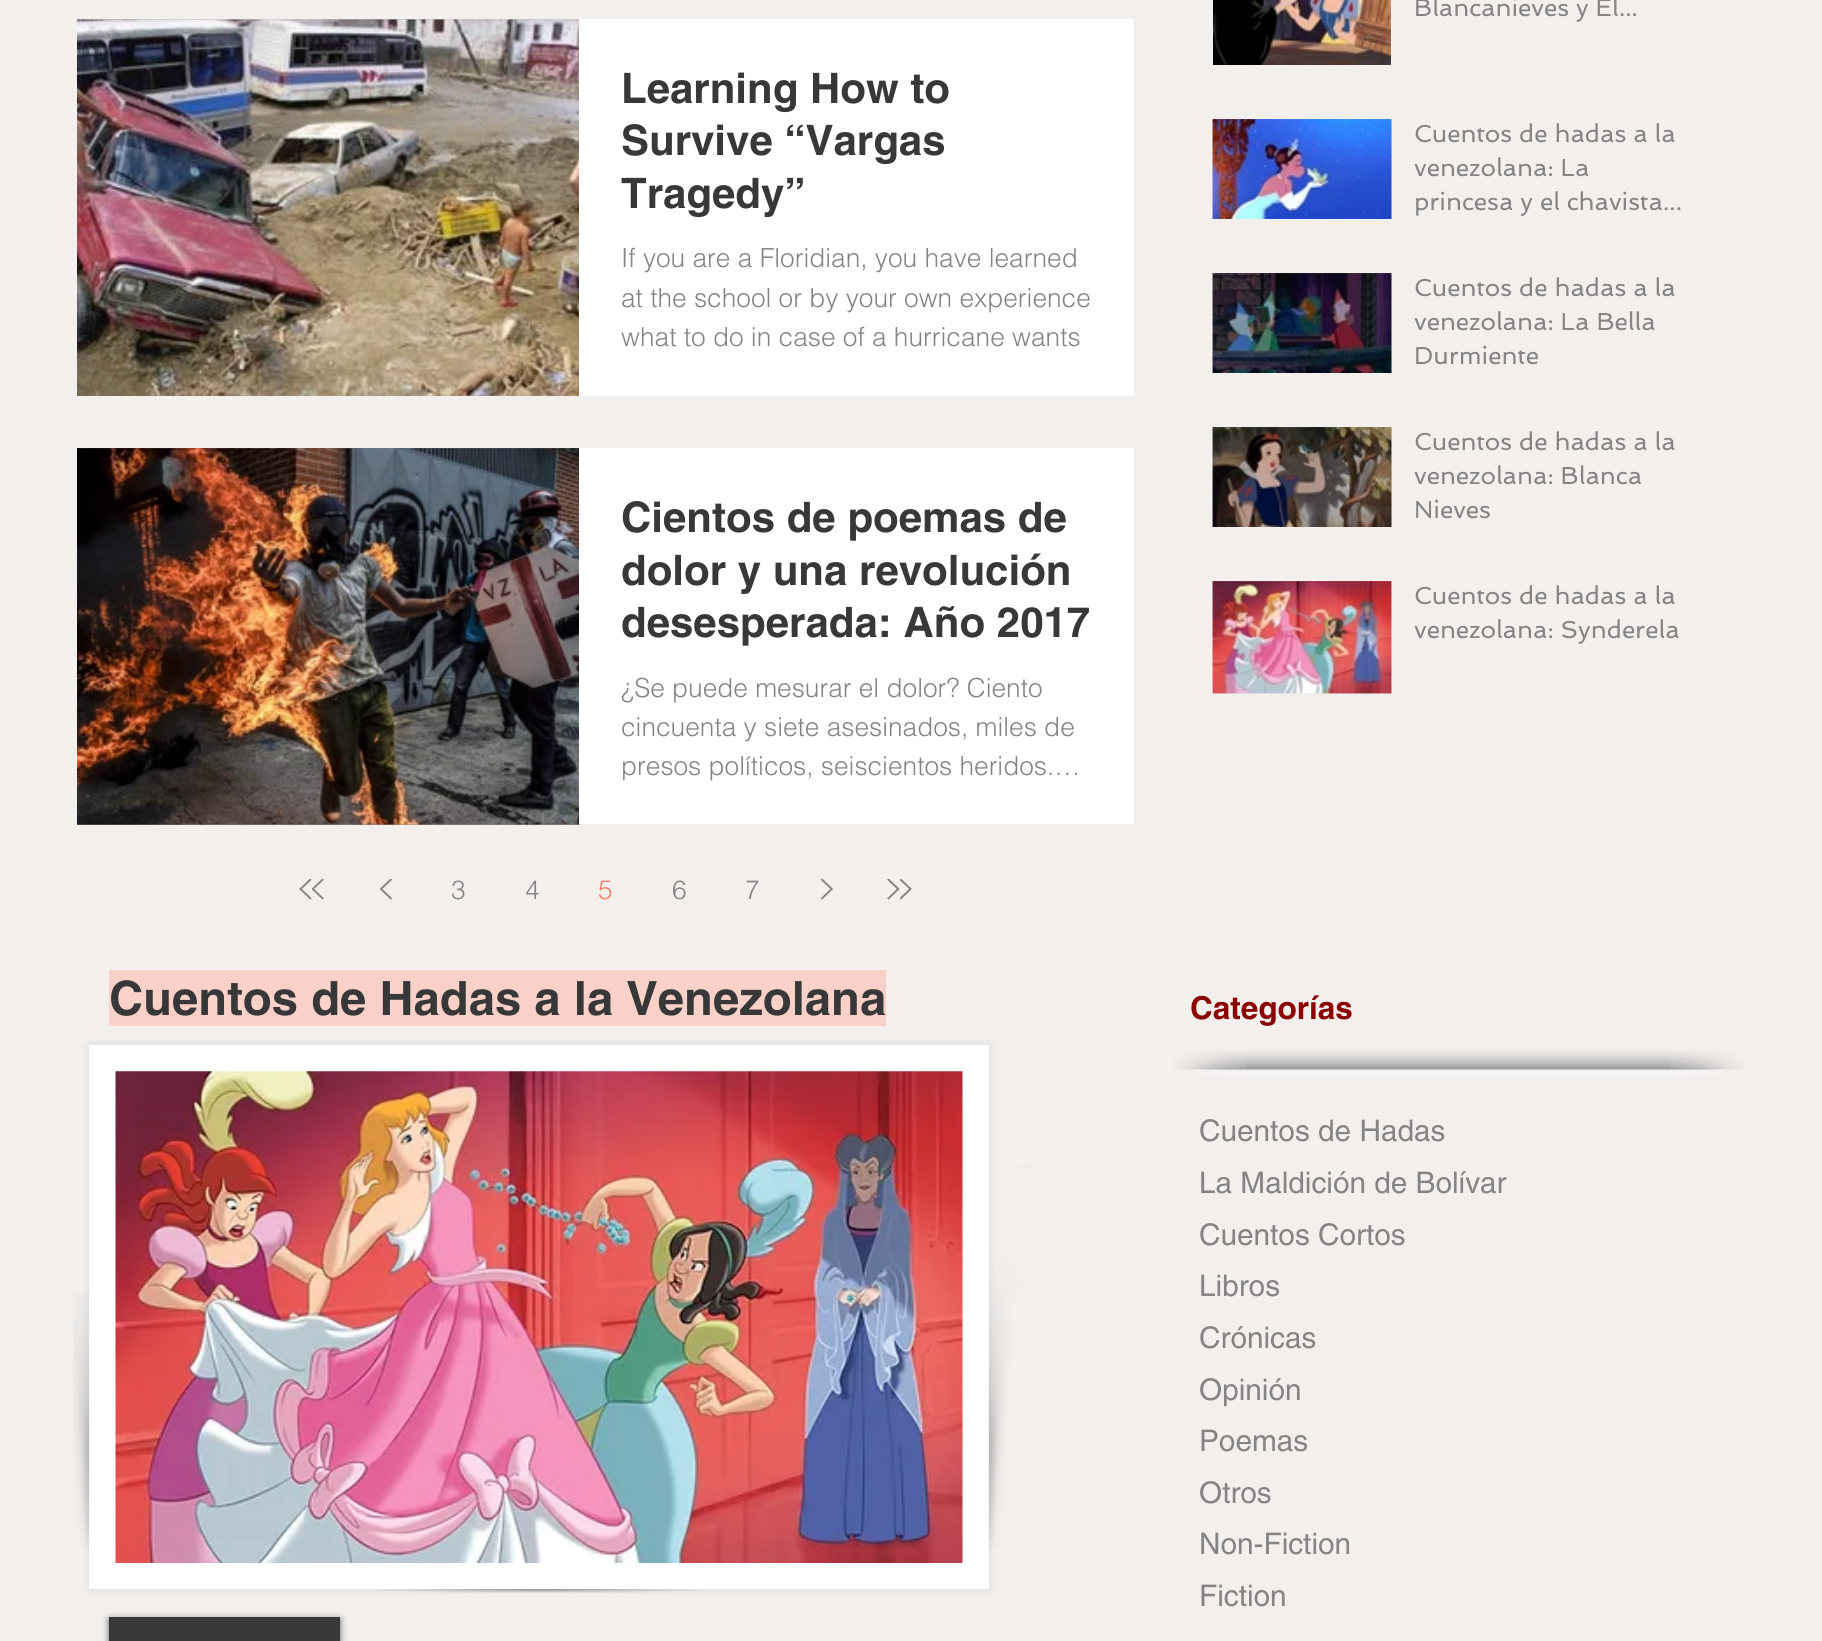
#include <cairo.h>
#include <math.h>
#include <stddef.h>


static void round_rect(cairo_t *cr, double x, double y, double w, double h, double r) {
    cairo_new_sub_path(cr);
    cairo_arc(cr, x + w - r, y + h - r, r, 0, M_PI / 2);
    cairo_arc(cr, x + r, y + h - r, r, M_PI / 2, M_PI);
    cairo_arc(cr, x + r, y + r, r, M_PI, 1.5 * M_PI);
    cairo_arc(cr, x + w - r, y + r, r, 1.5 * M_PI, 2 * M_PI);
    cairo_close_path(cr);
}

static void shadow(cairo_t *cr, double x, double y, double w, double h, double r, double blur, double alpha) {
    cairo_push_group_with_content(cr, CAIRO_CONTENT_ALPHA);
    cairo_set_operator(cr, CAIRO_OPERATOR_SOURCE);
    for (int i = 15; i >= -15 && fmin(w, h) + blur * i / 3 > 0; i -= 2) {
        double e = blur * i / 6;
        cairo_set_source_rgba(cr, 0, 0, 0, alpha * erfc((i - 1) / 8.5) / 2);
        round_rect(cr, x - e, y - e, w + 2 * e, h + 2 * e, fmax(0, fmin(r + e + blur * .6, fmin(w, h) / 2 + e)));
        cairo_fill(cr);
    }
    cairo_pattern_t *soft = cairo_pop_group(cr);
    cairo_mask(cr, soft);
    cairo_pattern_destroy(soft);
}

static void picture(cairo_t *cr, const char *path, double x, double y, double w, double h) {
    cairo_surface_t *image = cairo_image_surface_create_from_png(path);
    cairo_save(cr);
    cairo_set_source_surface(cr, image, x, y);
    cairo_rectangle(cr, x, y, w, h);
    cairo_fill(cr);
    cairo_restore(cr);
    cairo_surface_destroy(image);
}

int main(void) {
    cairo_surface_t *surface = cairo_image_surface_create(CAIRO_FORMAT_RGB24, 1822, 1641);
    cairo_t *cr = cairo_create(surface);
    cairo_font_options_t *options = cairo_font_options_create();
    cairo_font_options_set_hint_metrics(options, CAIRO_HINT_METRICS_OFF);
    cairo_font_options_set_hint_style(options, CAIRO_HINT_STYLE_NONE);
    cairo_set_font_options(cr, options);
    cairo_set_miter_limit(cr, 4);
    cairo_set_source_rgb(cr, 0.949, 0.937, 0.929);
    cairo_paint(cr);
    picture(cr, "img1.png", 77, 19, 502, 377);
    picture(cr, "img2.png", 77, 19, 502, 377);
    cairo_set_source_rgb(cr, 1, 1, 1);
    cairo_rectangle(cr, 579, 19, 555, 377);
    cairo_fill(cr);
    cairo_select_font_face(cr, "helvetica", CAIRO_FONT_SLANT_NORMAL, CAIRO_FONT_WEIGHT_BOLD);
    cairo_set_font_size(cr, 42);
    cairo_set_source_rgb(cr, 0.224, 0.22, 0.22);
    cairo_move_to(cr, 621, 103);
    cairo_show_text(cr, "Learning How to");
    cairo_move_to(cr, 621, 155);
    cairo_show_text(cr, "Survive “Vargas");
    cairo_move_to(cr, 621, 208);
    cairo_show_text(cr, "Tragedy”");
    cairo_select_font_face(cr, "helvetica Light", CAIRO_FONT_SLANT_NORMAL, CAIRO_FONT_WEIGHT_NORMAL);
    cairo_set_font_size(cr, 26.25);
    cairo_set_source_rgb(cr, 0.525, 0.514, 0.514);
    cairo_move_to(cr, 621, 267);
    cairo_show_text(cr, "If you are a Floridian, you have learned");
    cairo_move_to(cr, 621, 307);
    cairo_show_text(cr, "at the school or by your own experience");
    cairo_move_to(cr, 621, 346);
    cairo_show_text(cr, "what to do in case of a hurricane wants");
    picture(cr, "img3.png", 77, 448, 503, 377);
    picture(cr, "img4.png", 77, 448, 503, 377);
    cairo_set_source_rgb(cr, 1, 1, 1);
    cairo_rectangle(cr, 579, 448, 555, 376);
    cairo_fill(cr);
    cairo_select_font_face(cr, "helvetica", CAIRO_FONT_SLANT_NORMAL, CAIRO_FONT_WEIGHT_BOLD);
    cairo_set_font_size(cr, 42);
    cairo_set_source_rgb(cr, 0.224, 0.22, 0.22);
    cairo_move_to(cr, 621, 532);
    cairo_show_text(cr, "Cientos de poemas de");
    cairo_move_to(cr, 621, 585);
    cairo_show_text(cr, "dolor y una revolución");
    cairo_move_to(cr, 621, 637);
    cairo_show_text(cr, "desesperada: Año 2017");
    cairo_select_font_face(cr, "helvetica Light", CAIRO_FONT_SLANT_NORMAL, CAIRO_FONT_WEIGHT_NORMAL);
    cairo_set_font_size(cr, 26.25);
    cairo_set_source_rgb(cr, 0.525, 0.514, 0.514);
    cairo_move_to(cr, 621, 697);
    cairo_show_text(cr, "¿Se puede mesurar el dolor? Ciento");
    cairo_move_to(cr, 621, 736);
    cairo_show_text(cr, "cincuenta y siete asesinados, miles de");
    cairo_move_to(cr, 621, 775);
    cairo_show_text(cr, "presos políticos, seiscientos heridos.…");
    picture(cr, "img5.png", 299, 879, 13, 21);
    picture(cr, "img6.png", 312, 879, 12, 21);
    picture(cr, "img7.png", 380, 879, 12, 21);
    cairo_move_to(cr, 451, 899);
    cairo_show_text(cr, "3");
    cairo_move_to(cr, 525, 899);
    cairo_show_text(cr, "4");
    cairo_set_source_rgb(cr, 0.957, 0.506, 0.42);
    cairo_move_to(cr, 598, 899);
    cairo_show_text(cr, "5");
    cairo_set_source_rgb(cr, 0.525, 0.514, 0.514);
    cairo_move_to(cr, 672, 899);
    cairo_show_text(cr, "6");
    cairo_move_to(cr, 745, 899);
    cairo_show_text(cr, "7");
    picture(cr, "img8.png", 821, 879, 12, 21);
    picture(cr, "img9.png", 887, 879, 13, 21);
    picture(cr, "img10.png", 900, 879, 12, 21);
    picture(cr, "img11.png", 1213, 0, 178, 65);
    cairo_select_font_face(cr, "Spinnaker", CAIRO_FONT_SLANT_NORMAL, CAIRO_FONT_WEIGHT_NORMAL);
    cairo_set_font_size(cr, 24.5);
    cairo_move_to(cr, 1414, 16);
    cairo_show_text(cr, "Blancanieves y El...");
    picture(cr, "img12.png", 1212, 119, 180, 100);
    picture(cr, "img13.png", 1212, 119, 180, 100);
    cairo_move_to(cr, 1414, 142);
    cairo_show_text(cr, "Cuentos de hadas a la");
    cairo_move_to(cr, 1414, 176);
    cairo_show_text(cr, "venezolana: La");
    cairo_move_to(cr, 1414, 210);
    cairo_show_text(cr, "princesa y el chavista...");
    picture(cr, "img14.png", 1212, 273, 180, 100);
    picture(cr, "img15.png", 1212, 273, 180, 100);
    cairo_move_to(cr, 1414, 296);
    cairo_show_text(cr, "Cuentos de hadas a la");
    cairo_move_to(cr, 1414, 330);
    cairo_show_text(cr, "venezolana: La Bella");
    cairo_move_to(cr, 1414, 364);
    cairo_show_text(cr, "Durmiente");
    picture(cr, "img16.png", 1212, 427, 180, 100);
    picture(cr, "img17.png", 1212, 427, 180, 100);
    cairo_move_to(cr, 1414, 450);
    cairo_show_text(cr, "Cuentos de hadas a la");
    cairo_move_to(cr, 1414, 484);
    cairo_show_text(cr, "venezolana: Blanca");
    cairo_move_to(cr, 1414, 518);
    cairo_show_text(cr, "Nieves");
    picture(cr, "img18.png", 1212, 581, 180, 113);
    picture(cr, "img19.png", 1212, 581, 180, 113);
    cairo_move_to(cr, 1414, 604);
    cairo_show_text(cr, "Cuentos de hadas a la");
    cairo_move_to(cr, 1414, 638);
    cairo_show_text(cr, "venezolana: Synderela");
    cairo_set_source_rgb(cr, 0.976, 0.82, 0.788);
    cairo_rectangle(cr, 109, 970, 777, 56);
    cairo_fill(cr);
    cairo_select_font_face(cr, "helvetica", CAIRO_FONT_SLANT_NORMAL, CAIRO_FONT_WEIGHT_BOLD);
    cairo_set_font_size(cr, 47.25);
    cairo_set_source_rgb(cr, 0.224, 0.22, 0.22);
    cairo_move_to(cr, 109, 1015);
    cairo_show_text(cr, "Cuentos de Hadas a la Venezolana");
    cairo_set_source_rgb(cr, 0, 0, 0);
    shadow(cr, 89, 1045, 900, 544, 0, 4.5, 0.1);
    cairo_set_source_rgb(cr, 1, 1, 1);
    cairo_rectangle(cr, 89, 1045, 900, 544);
    cairo_fill(cr);
    picture(cr, "img20.png", 115, 1071, 848, 492);
    picture(cr, "img21.png", 375, 1589, 328, 4);
    picture(cr, "img22.png", 988, 1166, 42, 384);
    picture(cr, "img23.png", 73, 1293, 17, 257);
    cairo_set_source_rgb(cr, 0, 0, 0);
    shadow(cr, 109, 1619, 231, 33, 0, 3.5, 0.6);
    cairo_set_source_rgb(cr, 0.224, 0.22, 0.22);
    cairo_rectangle(cr, 109, 1617, 231, 24);
    cairo_fill(cr);
    cairo_set_font_size(cr, 31.5);
    cairo_set_source_rgb(cr, 0.545, 0, 0);
    cairo_move_to(cr, 1190, 1019);
    cairo_show_text(cr, "Categorías");
    picture(cr, "img24.png", 1246, 1050, 426, 27);
    picture(cr, "img25.png", 1174, 1050, 72, 26);
    picture(cr, "img26.png", 1671, 1050, 73, 26);
    cairo_select_font_face(cr, "helvetica", CAIRO_FONT_SLANT_NORMAL, CAIRO_FONT_WEIGHT_NORMAL);
    cairo_set_font_size(cr, 29.75);
    cairo_set_source_rgb(cr, 0.525, 0.514, 0.514);
    cairo_move_to(cr, 1199, 1141);
    cairo_show_text(cr, "Cuentos de Hadas");
    cairo_move_to(cr, 1199, 1193);
    cairo_show_text(cr, "La Maldición de Bolívar");
    cairo_move_to(cr, 1199, 1245);
    cairo_show_text(cr, "Cuentos Cortos");
    cairo_move_to(cr, 1199, 1296);
    cairo_show_text(cr, "Libros");
    cairo_move_to(cr, 1199, 1348);
    cairo_show_text(cr, "Crónicas");
    cairo_move_to(cr, 1199, 1400);
    cairo_show_text(cr, "Opinión");
    cairo_move_to(cr, 1199, 1451);
    cairo_show_text(cr, "Poemas");
    cairo_move_to(cr, 1199, 1503);
    cairo_show_text(cr, "Otros");
    cairo_move_to(cr, 1199, 1554);
    cairo_show_text(cr, "Non-Fiction");
    cairo_move_to(cr, 1199, 1606);
    cairo_show_text(cr, "Fiction");
    cairo_surface_write_to_png(surface, "page.png");
    cairo_font_options_destroy(options);
    cairo_destroy(cr);
    cairo_surface_destroy(surface);
    return 0;
}
